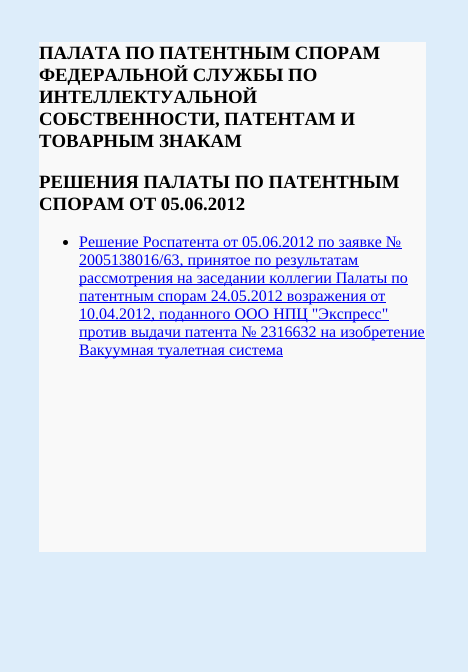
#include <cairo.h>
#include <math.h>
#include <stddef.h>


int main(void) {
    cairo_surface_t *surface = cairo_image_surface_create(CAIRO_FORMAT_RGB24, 468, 672);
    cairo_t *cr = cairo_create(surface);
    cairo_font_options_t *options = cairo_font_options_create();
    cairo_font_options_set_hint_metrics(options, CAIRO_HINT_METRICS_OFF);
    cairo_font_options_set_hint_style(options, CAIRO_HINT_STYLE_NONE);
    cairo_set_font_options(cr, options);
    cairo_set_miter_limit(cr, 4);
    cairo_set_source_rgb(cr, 0.867, 0.929, 0.98);
    cairo_paint(cr);
    cairo_set_source_rgb(cr, 0.973, 0.973, 0.973);
    cairo_rectangle(cr, 39, 42, 387, 510);
    cairo_fill(cr);
    cairo_select_font_face(cr, "Liberation Serif", CAIRO_FONT_SLANT_NORMAL, CAIRO_FONT_WEIGHT_BOLD);
    cairo_set_font_size(cr, 18.75);
    cairo_set_source_rgb(cr, 0, 0, 0);
    cairo_move_to(cr, 39, 59);
    cairo_show_text(cr, "ПАЛАТА ПО ПАТЕНТНЫМ СПОРАМ");
    cairo_move_to(cr, 39, 81);
    cairo_show_text(cr, "ФЕДЕРАЛЬНОЙ СЛУЖБЫ ПО");
    cairo_move_to(cr, 39, 103);
    cairo_show_text(cr, "ИНТЕЛЛЕКТУАЛЬНОЙ");
    cairo_move_to(cr, 39, 125);
    cairo_show_text(cr, "СОБСТВЕННОСТИ, ПАТЕНТАМ И");
    cairo_move_to(cr, 39, 147);
    cairo_show_text(cr, "ТОВАРНЫМ ЗНАКАМ");
    cairo_move_to(cr, 39, 188);
    cairo_show_text(cr, "РЕШЕНИЯ ПАЛАТЫ ПО ПАТЕНТНЫМ");
    cairo_move_to(cr, 39, 210);
    cairo_show_text(cr, "СПОРАМ ОТ 05.06.2012");
    cairo_new_path(cr);
    cairo_arc(cr, 65.5, 242.5, 2.5, 0, 2 * M_PI);
    cairo_fill(cr);
    cairo_select_font_face(cr, "Liberation Serif", CAIRO_FONT_SLANT_NORMAL, CAIRO_FONT_WEIGHT_NORMAL);
    cairo_set_font_size(cr, 16);
    cairo_set_source_rgb(cr, 0, 0, 0.933);
    cairo_move_to(cr, 79, 247);
    cairo_show_text(cr, "Решение Роспатента от 05.06.2012 по заявке №");
    cairo_rectangle(cr, 79, 248, 323, 1);
    cairo_fill(cr);
    cairo_rectangle(cr, 79, 266, 280, 1);
    cairo_fill(cr);
    cairo_move_to(cr, 79, 265);
    cairo_show_text(cr, "2005138016/63, принятое по результатам");
    cairo_rectangle(cr, 79, 284, 329, 1);
    cairo_fill(cr);
    cairo_move_to(cr, 79, 283);
    cairo_show_text(cr, "рассмотрения на заседании коллегии Палаты по");
    cairo_rectangle(cr, 79, 302, 307, 1);
    cairo_fill(cr);
    cairo_move_to(cr, 79, 301);
    cairo_show_text(cr, "патентным спорам 24.05.2012 возражения от");
    cairo_rectangle(cr, 79, 320, 310, 1);
    cairo_fill(cr);
    cairo_move_to(cr, 79, 319);
    cairo_show_text(cr, "10.04.2012, поданного ООО НПЦ \"Экспресс\"");
    cairo_rectangle(cr, 79, 338, 346, 1);
    cairo_fill(cr);
    cairo_move_to(cr, 79, 337);
    cairo_show_text(cr, "против выдачи патента № 2316632 на изобретение");
    cairo_rectangle(cr, 79, 356, 204, 1);
    cairo_fill(cr);
    cairo_move_to(cr, 79, 355);
    cairo_show_text(cr, "Вакуумная туалетная система");
    cairo_surface_write_to_png(surface, "page.png");
    cairo_font_options_destroy(options);
    cairo_destroy(cr);
    cairo_surface_destroy(surface);
    return 0;
}
